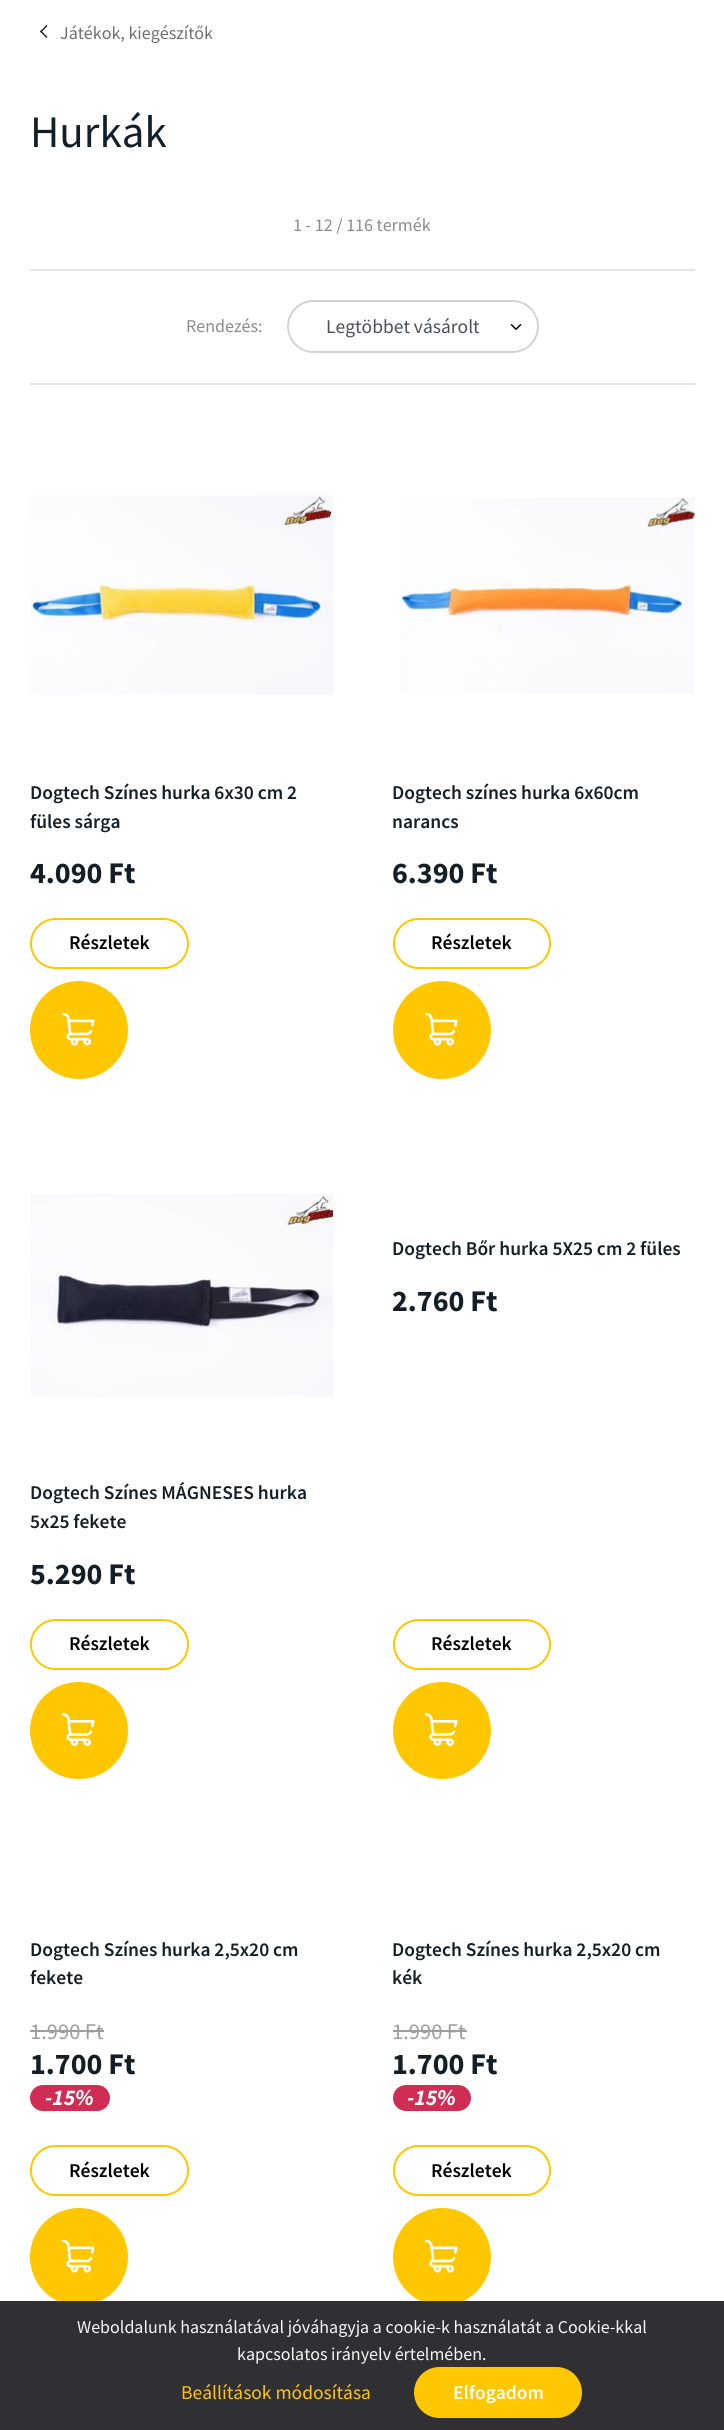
#include <cairo.h>
#include <math.h>
#include <stddef.h>


static void round_rect(cairo_t *cr, double x, double y, double w, double h, double r) {
    cairo_new_sub_path(cr);
    cairo_arc(cr, x + w - r, y + h - r, r, 0, M_PI / 2);
    cairo_arc(cr, x + r, y + h - r, r, M_PI / 2, M_PI);
    cairo_arc(cr, x + r, y + r, r, M_PI, 1.5 * M_PI);
    cairo_arc(cr, x + w - r, y + r, r, 1.5 * M_PI, 2 * M_PI);
    cairo_close_path(cr);
}

static void picture(cairo_t *cr, const char *path, double x, double y, double w, double h) {
    cairo_surface_t *image = cairo_image_surface_create_from_png(path);
    cairo_save(cr);
    cairo_set_source_surface(cr, image, x, y);
    cairo_rectangle(cr, x, y, w, h);
    cairo_fill(cr);
    cairo_restore(cr);
    cairo_surface_destroy(image);
}

int main(void) {
    cairo_surface_t *surface = cairo_image_surface_create(CAIRO_FORMAT_RGB24, 724, 2430);
    cairo_t *cr = cairo_create(surface);
    cairo_font_options_t *options = cairo_font_options_create();
    cairo_font_options_set_hint_metrics(options, CAIRO_HINT_METRICS_OFF);
    cairo_font_options_set_hint_style(options, CAIRO_HINT_STYLE_NONE);
    cairo_set_font_options(cr, options);
    cairo_set_miter_limit(cr, 4);
    cairo_set_source_rgb(cr, 1, 1, 1);
    cairo_paint(cr);
    cairo_set_source_rgb(cr, 0.082, 0.118, 0.149);
    cairo_new_path(cr);
    cairo_move_to(cr, 47.5, 37);
    cairo_line_to(cr, 46.5, 38);
    cairo_line_to(cr, 40, 31.5);
    cairo_line_to(cr, 41, 30.5);
    cairo_close_path(cr);
    cairo_fill(cr);
    cairo_new_path(cr);
    cairo_move_to(cr, 47.5, 26);
    cairo_line_to(cr, 41, 32.5);
    cairo_line_to(cr, 40, 31.5);
    cairo_line_to(cr, 46.5, 25);
    cairo_close_path(cr);
    cairo_fill(cr);
    cairo_select_font_face(cr, "Source Sans Pro", CAIRO_FONT_SLANT_NORMAL, CAIRO_FONT_WEIGHT_NORMAL);
    cairo_set_font_size(cr, 18);
    cairo_set_source_rgb(cr, 0.435, 0.435, 0.435);
    cairo_move_to(cr, 60, 39);
    cairo_show_text(cr, "Játékok, kiegészítők");
    cairo_set_font_size(cr, 45);
    cairo_set_source_rgb(cr, 0.082, 0.118, 0.149);
    cairo_move_to(cr, 30, 147);
    cairo_show_text(cr, "Hurkák");
    cairo_set_source_rgb(cr, 0.894, 0.894, 0.894);
    cairo_rectangle(cr, 30, 383, 665, 2);
    cairo_fill(cr);
    cairo_set_font_size(cr, 18);
    cairo_set_source_rgb(cr, 0.545, 0.545, 0.545);
    cairo_move_to(cr, 293, 231);
    cairo_show_text(cr, "1 - 12 / 116 termék");
    cairo_set_source_rgb(cr, 0.894, 0.894, 0.894);
    cairo_rectangle(cr, 30, 269, 665, 2);
    cairo_fill(cr);
    cairo_set_source_rgb(cr, 0.545, 0.545, 0.545);
    cairo_move_to(cr, 186, 332);
    cairo_show_text(cr, "Rendezés:");
    picture(cr, "img1.png", 510, 324, 12, 6);
    round_rect(cr, 288, 301, 250, 51, 25.5);
    cairo_set_source_rgb(cr, 0.827, 0.827, 0.827);
    cairo_stroke(cr);
    cairo_set_font_size(cr, 19.5);
    cairo_set_source_rgb(cr, 0.286, 0.314, 0.341);
    cairo_move_to(cr, 326, 333);
    cairo_show_text(cr, "Legtöbbet vásárolt");
    picture(cr, "img2.png", 30, 495, 303, 200);
    cairo_select_font_face(cr, "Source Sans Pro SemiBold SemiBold", CAIRO_FONT_SLANT_NORMAL, CAIRO_FONT_WEIGHT_NORMAL);
    cairo_set_source_rgb(cr, 0.082, 0.118, 0.149);
    cairo_move_to(cr, 30, 799);
    cairo_show_text(cr, "Dogtech Színes hurka 6x30 cm 2");
    cairo_move_to(cr, 30, 828);
    cairo_show_text(cr, "füles sárga");
    cairo_select_font_face(cr, "Source Sans Pro", CAIRO_FONT_SLANT_NORMAL, CAIRO_FONT_WEIGHT_BOLD);
    cairo_set_font_size(cr, 30);
    cairo_move_to(cr, 30, 883);
    cairo_show_text(cr, "4.090 Ft");
    round_rect(cr, 31, 919, 157, 49, 24.5);
    cairo_set_source_rgb(cr, 1, 0.78, 0);
    cairo_stroke(cr);
    cairo_select_font_face(cr, "Source Sans Pro SemiBold SemiBold", CAIRO_FONT_SLANT_NORMAL, CAIRO_FONT_WEIGHT_NORMAL);
    cairo_set_font_size(cr, 19.5);
    cairo_set_source_rgb(cr, 0, 0, 0);
    cairo_move_to(cr, 69, 949);
    cairo_show_text(cr, "Részletek");
    cairo_set_source_rgb(cr, 1, 0.78, 0);
    cairo_new_path(cr);
    cairo_arc(cr, 79, 1030, 48, 0, 2 * M_PI);
    cairo_fill_preserve(cr);
    cairo_stroke(cr);
    picture(cr, "img3.png", 62, 1013, 33, 33);
    picture(cr, "img4.png", 400, 497, 295, 196);
    cairo_set_source_rgb(cr, 0.082, 0.118, 0.149);
    cairo_move_to(cr, 392, 799);
    cairo_show_text(cr, "Dogtech színes hurka 6x60cm");
    cairo_move_to(cr, 392, 828);
    cairo_show_text(cr, "narancs");
    cairo_select_font_face(cr, "Source Sans Pro", CAIRO_FONT_SLANT_NORMAL, CAIRO_FONT_WEIGHT_BOLD);
    cairo_set_font_size(cr, 30);
    cairo_move_to(cr, 392, 883);
    cairo_show_text(cr, "6.390 Ft");
    round_rect(cr, 394, 919, 156, 49, 24.5);
    cairo_set_source_rgb(cr, 1, 0.78, 0);
    cairo_stroke(cr);
    cairo_select_font_face(cr, "Source Sans Pro SemiBold SemiBold", CAIRO_FONT_SLANT_NORMAL, CAIRO_FONT_WEIGHT_NORMAL);
    cairo_set_font_size(cr, 19.5);
    cairo_set_source_rgb(cr, 0, 0, 0);
    cairo_move_to(cr, 431, 949);
    cairo_show_text(cr, "Részletek");
    cairo_set_source_rgb(cr, 1, 0.78, 0);
    cairo_new_path(cr);
    cairo_arc(cr, 442, 1030, 48, 0, 2 * M_PI);
    cairo_fill_preserve(cr);
    cairo_stroke(cr);
    picture(cr, "img3.png", 425, 1013, 33, 33);
    picture(cr, "img5.png", 30, 1193, 303, 204);
    cairo_set_source_rgb(cr, 0.082, 0.118, 0.149);
    cairo_move_to(cr, 30, 1499);
    cairo_show_text(cr, "Dogtech Színes MÁGNESES hurka");
    cairo_move_to(cr, 30, 1528);
    cairo_show_text(cr, "5x25 fekete");
    cairo_select_font_face(cr, "Source Sans Pro", CAIRO_FONT_SLANT_NORMAL, CAIRO_FONT_WEIGHT_BOLD);
    cairo_set_font_size(cr, 30);
    cairo_move_to(cr, 30, 1584);
    cairo_show_text(cr, "5.290 Ft");
    round_rect(cr, 31, 1620, 157, 49, 24.5);
    cairo_set_source_rgb(cr, 1, 0.78, 0);
    cairo_stroke(cr);
    cairo_select_font_face(cr, "Source Sans Pro SemiBold SemiBold", CAIRO_FONT_SLANT_NORMAL, CAIRO_FONT_WEIGHT_NORMAL);
    cairo_set_font_size(cr, 19.5);
    cairo_set_source_rgb(cr, 0, 0, 0);
    cairo_move_to(cr, 69, 1650);
    cairo_show_text(cr, "Részletek");
    cairo_set_source_rgb(cr, 1, 0.78, 0);
    round_rect(cr, 31, 1683, 96, 95, 47.5);
    cairo_fill_preserve(cr);
    cairo_stroke(cr);
    picture(cr, "img6.png", 62, 1713, 33, 33);
    cairo_set_source_rgb(cr, 0.082, 0.118, 0.149);
    cairo_move_to(cr, 392, 1255);
    cairo_show_text(cr, "Dogtech Bőr hurka 5X25 cm 2 füles");
    cairo_select_font_face(cr, "Source Sans Pro", CAIRO_FONT_SLANT_NORMAL, CAIRO_FONT_WEIGHT_BOLD);
    cairo_set_font_size(cr, 30);
    cairo_move_to(cr, 392, 1311);
    cairo_show_text(cr, "2.760 Ft");
    round_rect(cr, 394, 1620, 156, 49, 24.5);
    cairo_set_source_rgb(cr, 1, 0.78, 0);
    cairo_stroke(cr);
    cairo_select_font_face(cr, "Source Sans Pro SemiBold SemiBold", CAIRO_FONT_SLANT_NORMAL, CAIRO_FONT_WEIGHT_NORMAL);
    cairo_set_font_size(cr, 19.5);
    cairo_set_source_rgb(cr, 0, 0, 0);
    cairo_move_to(cr, 431, 1650);
    cairo_show_text(cr, "Részletek");
    cairo_set_source_rgb(cr, 1, 0.78, 0);
    round_rect(cr, 394, 1683, 96, 95, 47.5);
    cairo_fill_preserve(cr);
    cairo_stroke(cr);
    picture(cr, "img6.png", 425, 1713, 33, 33);
    cairo_set_source_rgb(cr, 0.082, 0.118, 0.149);
    cairo_move_to(cr, 30, 1956);
    cairo_show_text(cr, "Dogtech Színes hurka 2,5x20 cm");
    cairo_move_to(cr, 30, 1984);
    cairo_show_text(cr, "fekete");
    cairo_select_font_face(cr, "Source Sans Pro", CAIRO_FONT_SLANT_NORMAL, CAIRO_FONT_WEIGHT_NORMAL);
    cairo_set_font_size(cr, 22.5);
    cairo_set_source_rgb(cr, 0.62, 0.62, 0.62);
    cairo_move_to(cr, 30, 2039);
    cairo_show_text(cr, "1.990 Ft");
    cairo_rectangle(cr, 30, 2030, 74, 2);
    cairo_fill(cr);
    cairo_select_font_face(cr, "Source Sans Pro", CAIRO_FONT_SLANT_NORMAL, CAIRO_FONT_WEIGHT_BOLD);
    cairo_set_font_size(cr, 30);
    cairo_set_source_rgb(cr, 0.082, 0.118, 0.149);
    cairo_move_to(cr, 30, 2074);
    cairo_show_text(cr, "1.700 Ft");
    cairo_set_source_rgb(cr, 0.816, 0.176, 0.329);
    round_rect(cr, 30, 2085, 80, 26, 13);
    cairo_fill(cr);
    cairo_select_font_face(cr, "Source Sans Pro", CAIRO_FONT_SLANT_ITALIC, CAIRO_FONT_WEIGHT_BOLD);
    cairo_set_font_size(cr, 22.5);
    cairo_set_source_rgb(cr, 1, 1, 1);
    cairo_move_to(cr, 45, 2105);
    cairo_show_text(cr, "-15%");
    round_rect(cr, 31, 2146, 157, 49, 24.5);
    cairo_set_source_rgb(cr, 1, 0.78, 0);
    cairo_stroke(cr);
    cairo_select_font_face(cr, "Source Sans Pro SemiBold SemiBold", CAIRO_FONT_SLANT_NORMAL, CAIRO_FONT_WEIGHT_NORMAL);
    cairo_set_font_size(cr, 19.5);
    cairo_set_source_rgb(cr, 0, 0, 0);
    cairo_move_to(cr, 69, 2177);
    cairo_show_text(cr, "Részletek");
    cairo_set_source_rgb(cr, 1, 0.78, 0);
    cairo_new_path(cr);
    cairo_arc(cr, 79, 2257, 48, 0, 2 * M_PI);
    cairo_fill_preserve(cr);
    cairo_stroke(cr);
    picture(cr, "img3.png", 62, 2240, 33, 33);
    cairo_set_source_rgb(cr, 0.082, 0.118, 0.149);
    cairo_move_to(cr, 392, 1956);
    cairo_show_text(cr, "Dogtech Színes hurka 2,5x20 cm");
    cairo_move_to(cr, 392, 1984);
    cairo_show_text(cr, "kék");
    cairo_select_font_face(cr, "Source Sans Pro", CAIRO_FONT_SLANT_NORMAL, CAIRO_FONT_WEIGHT_NORMAL);
    cairo_set_font_size(cr, 22.5);
    cairo_set_source_rgb(cr, 0.62, 0.62, 0.62);
    cairo_move_to(cr, 392, 2039);
    cairo_show_text(cr, "1.990 Ft");
    cairo_rectangle(cr, 393, 2030, 74, 2);
    cairo_fill(cr);
    cairo_select_font_face(cr, "Source Sans Pro", CAIRO_FONT_SLANT_NORMAL, CAIRO_FONT_WEIGHT_BOLD);
    cairo_set_font_size(cr, 30);
    cairo_set_source_rgb(cr, 0.082, 0.118, 0.149);
    cairo_move_to(cr, 392, 2074);
    cairo_show_text(cr, "1.700 Ft");
    cairo_set_source_rgb(cr, 0.816, 0.176, 0.329);
    round_rect(cr, 393, 2085, 78, 26, 13);
    cairo_fill(cr);
    cairo_select_font_face(cr, "Source Sans Pro", CAIRO_FONT_SLANT_ITALIC, CAIRO_FONT_WEIGHT_BOLD);
    cairo_set_font_size(cr, 22.5);
    cairo_set_source_rgb(cr, 1, 1, 1);
    cairo_move_to(cr, 407, 2105);
    cairo_show_text(cr, "-15%");
    round_rect(cr, 394, 2146, 156, 49, 24.5);
    cairo_set_source_rgb(cr, 1, 0.78, 0);
    cairo_stroke(cr);
    cairo_select_font_face(cr, "Source Sans Pro SemiBold SemiBold", CAIRO_FONT_SLANT_NORMAL, CAIRO_FONT_WEIGHT_NORMAL);
    cairo_set_font_size(cr, 19.5);
    cairo_set_source_rgb(cr, 0, 0, 0);
    cairo_move_to(cr, 431, 2177);
    cairo_show_text(cr, "Részletek");
    cairo_set_source_rgb(cr, 1, 0.78, 0);
    cairo_new_path(cr);
    cairo_arc(cr, 442, 2257, 48, 0, 2 * M_PI);
    cairo_fill_preserve(cr);
    cairo_stroke(cr);
    picture(cr, "img3.png", 425, 2240, 33, 33);
    cairo_set_source_rgb(cr, 0.188, 0.184, 0.204);
    cairo_rectangle(cr, 0, 2301, 724, 129);
    cairo_fill(cr);
    cairo_select_font_face(cr, "Source Sans Pro", CAIRO_FONT_SLANT_NORMAL, CAIRO_FONT_WEIGHT_NORMAL);
    cairo_set_font_size(cr, 18);
    cairo_set_source_rgb(cr, 0.961, 0.961, 0.961);
    cairo_move_to(cr, 77, 2333);
    cairo_show_text(cr, "Weboldalunk használatával jóváhagyja a cookie-k használatát a Cookie-kkal");
    cairo_move_to(cr, 237, 2360);
    cairo_show_text(cr, "kapcsolatos irányelv értelmében.");
    cairo_set_font_size(cr, 19.5);
    cairo_set_source_rgb(cr, 1, 0.78, 0);
    cairo_move_to(cr, 181, 2399);
    cairo_show_text(cr, "Beállítások módosítása");
    round_rect(cr, 415, 2368, 166, 49, 24.5);
    cairo_fill_preserve(cr);
    cairo_stroke(cr);
    cairo_select_font_face(cr, "Source Sans Pro SemiBold SemiBold", CAIRO_FONT_SLANT_NORMAL, CAIRO_FONT_WEIGHT_NORMAL);
    cairo_set_source_rgb(cr, 1, 1, 1);
    cairo_move_to(cr, 453, 2399);
    cairo_show_text(cr, "Elfogadom");
    cairo_surface_write_to_png(surface, "page.png");
    cairo_font_options_destroy(options);
    cairo_destroy(cr);
    cairo_surface_destroy(surface);
    return 0;
}
